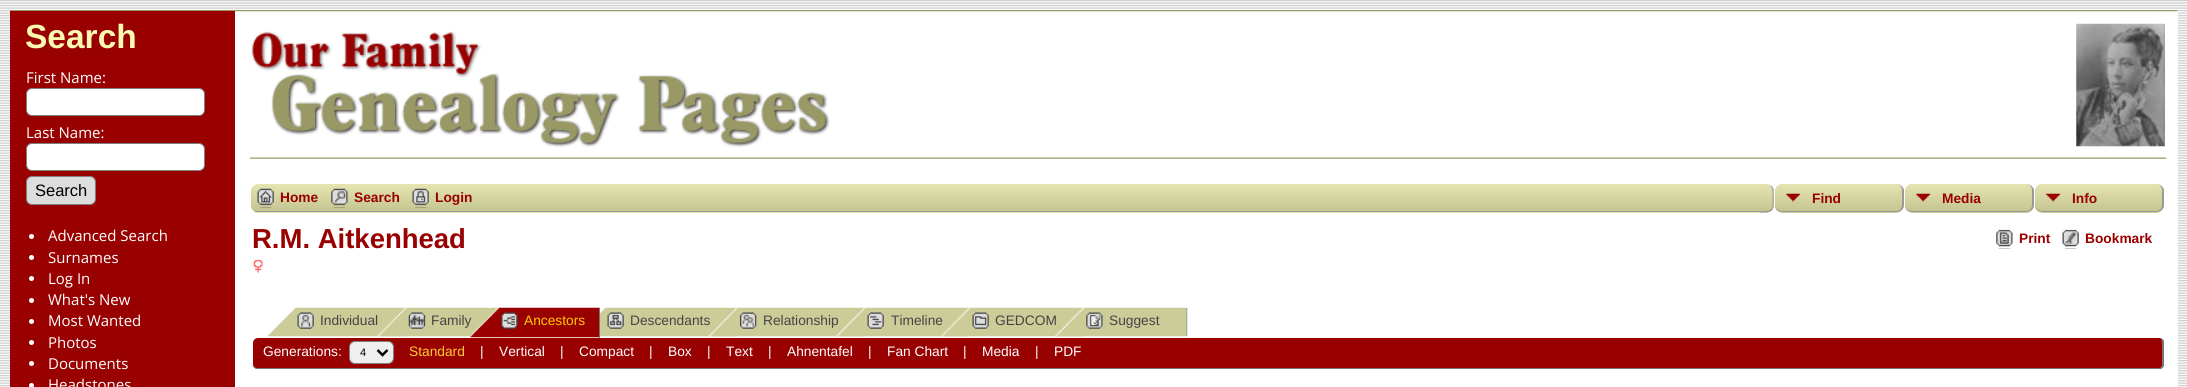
#include <cairo.h>
#include <math.h>
#include <stddef.h>


static void round_rect(cairo_t *cr, double x, double y, double w, double h, double r) {
    cairo_new_sub_path(cr);
    cairo_arc(cr, x + w - r, y + h - r, r, 0, M_PI / 2);
    cairo_arc(cr, x + r, y + h - r, r, M_PI / 2, M_PI);
    cairo_arc(cr, x + r, y + r, r, M_PI, 1.5 * M_PI);
    cairo_arc(cr, x + w - r, y + r, r, 1.5 * M_PI, 2 * M_PI);
    cairo_close_path(cr);
}

static void picture(cairo_t *cr, const char *path, double x, double y, double w, double h) {
    cairo_surface_t *image = cairo_image_surface_create_from_png(path);
    cairo_save(cr);
    cairo_set_source_surface(cr, image, x, y);
    cairo_rectangle(cr, x, y, w, h);
    cairo_fill(cr);
    cairo_restore(cr);
    cairo_surface_destroy(image);
}

int main(void) {
    cairo_surface_t *surface = cairo_image_surface_create(CAIRO_FORMAT_RGB24, 2187, 387);
    cairo_t *cr = cairo_create(surface);
    cairo_font_options_t *options = cairo_font_options_create();
    cairo_font_options_set_hint_metrics(options, CAIRO_HINT_METRICS_OFF);
    cairo_font_options_set_hint_style(options, CAIRO_HINT_STYLE_NONE);
    cairo_set_font_options(cr, options);
    cairo_set_miter_limit(cr, 4);
    cairo_pattern_t *gradient;
    cairo_set_source_rgb(cr, 1, 1, 1);
    cairo_paint(cr);
    picture(cr, "img1.png", 0, 0, 2187, 387);
    cairo_set_source_rgb(cr, 1, 1, 1);
    cairo_rectangle(cr, 235, 10, 1943, 377);
    cairo_fill(cr);
    picture(cr, "img2.png", 10, 10, 2168, 2);
    cairo_set_source_rgb(cr, 0.6, 0, 0);
    cairo_rectangle(cr, 10, 11, 225, 376);
    cairo_fill(cr);
    cairo_select_font_face(cr, "Liberation Sans", CAIRO_FONT_SLANT_NORMAL, CAIRO_FONT_WEIGHT_BOLD);
    cairo_set_font_size(cr, 33.5);
    cairo_set_source_rgb(cr, 0.973, 0.973, 0.698);
    cairo_move_to(cr, 25, 48);
    cairo_show_text(cr, "Search");
    cairo_select_font_face(cr, "Open Sans", CAIRO_FONT_SLANT_NORMAL, CAIRO_FONT_WEIGHT_NORMAL);
    cairo_set_font_size(cr, 15);
    cairo_set_source_rgb(cr, 1, 1, 1);
    cairo_move_to(cr, 26, 83);
    cairo_show_text(cr, "First Name:");
    round_rect(cr, 26.5, 88.5, 178, 27, 5.5);
    cairo_fill_preserve(cr);
    cairo_set_source_rgb(cr, 0.502, 0.502, 0.502);
    cairo_set_line_width(cr, 1);
    cairo_stroke(cr);
    cairo_set_source_rgb(cr, 1, 1, 1);
    cairo_move_to(cr, 26, 138);
    cairo_show_text(cr, "Last Name:");
    round_rect(cr, 26.5, 143.5, 178, 27, 5.5);
    cairo_fill_preserve(cr);
    cairo_set_source_rgb(cr, 0.502, 0.502, 0.502);
    cairo_stroke(cr);
    cairo_set_source_rgb(cr, 0.867, 0.867, 0.867);
    round_rect(cr, 26.5, 176.5, 69, 28, 5.5);
    cairo_fill_preserve(cr);
    cairo_set_source_rgb(cr, 0.502, 0.502, 0.502);
    cairo_stroke(cr);
    cairo_select_font_face(cr, "Liberation Sans", CAIRO_FONT_SLANT_NORMAL, CAIRO_FONT_WEIGHT_NORMAL);
    cairo_set_font_size(cr, 16.5);
    cairo_set_source_rgb(cr, 0, 0, 0);
    cairo_move_to(cr, 35, 196);
    cairo_show_text(cr, "Search");
    cairo_set_source_rgb(cr, 1, 1, 1);
    cairo_new_path(cr);
    cairo_arc(cr, 31.5, 236.5, 2.5, 0, 2 * M_PI);
    cairo_fill(cr);
    cairo_select_font_face(cr, "Open Sans", CAIRO_FONT_SLANT_NORMAL, CAIRO_FONT_WEIGHT_NORMAL);
    cairo_set_font_size(cr, 15);
    cairo_move_to(cr, 48, 241);
    cairo_show_text(cr, "Advanced Search");
    cairo_new_path(cr);
    cairo_arc(cr, 31.5, 257.5, 2.5, 0, 2 * M_PI);
    cairo_fill(cr);
    cairo_move_to(cr, 48, 263);
    cairo_show_text(cr, "Surnames");
    cairo_new_path(cr);
    cairo_arc(cr, 31.5, 278.5, 2.5, 0, 2 * M_PI);
    cairo_fill(cr);
    cairo_move_to(cr, 48, 284);
    cairo_show_text(cr, "Log In");
    cairo_new_path(cr);
    cairo_arc(cr, 31.5, 300.5, 2.5, 0, 2 * M_PI);
    cairo_fill(cr);
    cairo_move_to(cr, 48, 305);
    cairo_show_text(cr, "What's New");
    cairo_new_path(cr);
    cairo_arc(cr, 31.5, 321.5, 2.5, 0, 2 * M_PI);
    cairo_fill(cr);
    cairo_move_to(cr, 48, 326);
    cairo_show_text(cr, "Most Wanted");
    cairo_new_path(cr);
    cairo_arc(cr, 31.5, 342.5, 2.5, 0, 2 * M_PI);
    cairo_fill(cr);
    cairo_move_to(cr, 48, 348);
    cairo_show_text(cr, "Photos");
    cairo_new_path(cr);
    cairo_arc(cr, 31.5, 363.5, 2.5, 0, 2 * M_PI);
    cairo_fill(cr);
    cairo_move_to(cr, 48, 369);
    cairo_show_text(cr, "Documents");
    cairo_new_path(cr);
    cairo_arc(cr, 31.5, 385.5, 2.5, 0, 2 * M_PI);
    cairo_fill(cr);
    cairo_move_to(cr, 48, 390);
    cairo_show_text(cr, "Headstones");
    picture(cr, "img3.png", 251, 31, 579, 116);
    picture(cr, "img4.png", 2076, 23, 89, 124);
    picture(cr, "img5.png", 250, 157, 1917, 2);
    cairo_set_source_rgb(cr, 0.8, 0.8, 0.6);
    round_rect(cr, 251, 184, 1914, 29, 8);
    cairo_fill(cr);
    cairo_save(cr);
    round_rect(cr, 251, 184, 1914, 29, 8);
    cairo_clip(cr);
    gradient = cairo_pattern_create_linear(1208, 184, 1208, 211);
    cairo_pattern_add_color_stop_rgba(gradient, 0, 0.898, 0.898, 0.694, 1);
    cairo_pattern_add_color_stop_rgba(gradient, 1, 0.773, 0.773, 0.569, 1);
    cairo_set_source(cr, gradient);
    cairo_pattern_destroy(gradient);
    cairo_new_path(cr);
    cairo_move_to(cr, 259, 184);
    cairo_line_to(cr, 2157, 184);
    cairo_curve_to(cr, 2161.5, 184, 2165, 187.5, 2165, 192);
    cairo_line_to(cr, 2165, 211);
    cairo_line_to(cr, 251, 211);
    cairo_line_to(cr, 251, 192);
    cairo_curve_to(cr, 251, 187.5, 254.5, 184, 259, 184);
    cairo_close_path(cr);
    cairo_fill(cr);
    gradient = cairo_pattern_create_linear(1208, 211, 1208, 239);
    cairo_pattern_add_color_stop_rgba(gradient, 0, 0.898, 0.898, 0.694, 1);
    cairo_pattern_add_color_stop_rgba(gradient, 1, 0.773, 0.773, 0.569, 1);
    cairo_set_source(cr, gradient);
    cairo_pattern_destroy(gradient);
    cairo_rectangle(cr, 251, 211, 1509, 2);
    cairo_fill(cr);
    cairo_restore(cr);
    cairo_set_source_rgb(cr, 0.6, 0.6, 0.6);
    cairo_rectangle(cr, 255, 211, 1505, 1);
    cairo_fill(cr);
    picture(cr, "img6.png", 257, 188, 17, 20);
    cairo_select_font_face(cr, "Liberation Sans", CAIRO_FONT_SLANT_NORMAL, CAIRO_FONT_WEIGHT_BOLD);
    cairo_set_font_size(cr, 13.75);
    cairo_set_source_rgb(cr, 0.6, 0, 0);
    cairo_move_to(cr, 280, 202);
    cairo_show_text(cr, "Home");
    picture(cr, "img7.png", 331, 188, 17, 20);
    cairo_move_to(cr, 354, 202);
    cairo_show_text(cr, "Search");
    picture(cr, "img8.png", 412, 188, 17, 20);
    cairo_move_to(cr, 435, 202);
    cairo_show_text(cr, "Login");
    cairo_set_source_rgb(cr, 1, 1, 1);
    cairo_rectangle(cr, 1766, 184, 399, 29);
    cairo_fill(cr);
    cairo_save(cr);
    cairo_new_path(cr);
    cairo_move_to(cr, 1760, 184);
    cairo_line_to(cr, 1766, 184);
    cairo_curve_to(cr, 1770.5, 184, 1774, 187.5, 1774, 192);
    cairo_line_to(cr, 1774, 205);
    cairo_curve_to(cr, 1774, 209.5, 1770.5, 213, 1766, 213);
    cairo_line_to(cr, 1760, 213);
    cairo_close_path(cr);
    cairo_clip(cr);
    gradient = cairo_pattern_create_linear(1766, 184, 1766, 211);
    cairo_pattern_add_color_stop_rgba(gradient, 0, 0.898, 0.898, 0.694, 1);
    cairo_pattern_add_color_stop_rgba(gradient, 1, 0.773, 0.773, 0.569, 1);
    cairo_set_source(cr, gradient);
    cairo_pattern_destroy(gradient);
    cairo_rectangle(cr, 1760, 184, 14, 27);
    cairo_fill(cr);
    gradient = cairo_pattern_create_linear(1766, 211, 1766, 239);
    cairo_pattern_add_color_stop_rgba(gradient, 0, 0.898, 0.898, 0.694, 1);
    cairo_pattern_add_color_stop_rgba(gradient, 1, 0.773, 0.773, 0.569, 1);
    cairo_set_source(cr, gradient);
    cairo_pattern_destroy(gradient);
    cairo_rectangle(cr, 1760, 211, 14, 2);
    cairo_fill(cr);
    cairo_restore(cr);
    cairo_set_source_rgb(cr, 0.6, 0.6, 0.6);
    cairo_set_fill_rule(cr, CAIRO_FILL_RULE_EVEN_ODD);
    cairo_new_path(cr);
    cairo_move_to(cr, 1760, 184);
    cairo_curve_to(cr, 1765.5, 184, 1772, 183, 1773.5, 189.5);
    cairo_line_to(cr, 1773.5, 206.5);
    cairo_curve_to(cr, 1772, 213.5, 1765.5, 212.5, 1760, 212.5);
    cairo_close_path(cr);
    cairo_move_to(cr, 1760, 184);
    cairo_line_to(cr, 1767.5, 184);
    cairo_curve_to(cr, 1773.5, 185.5, 1772.5, 193.5, 1772.5, 198);
    cairo_line_to(cr, 1772.5, 206.5);
    cairo_curve_to(cr, 1771, 212, 1764.5, 211, 1760, 211);
    cairo_close_path(cr);
    cairo_fill(cr);
    cairo_set_source_rgb(cr, 0.8, 0.8, 0.6);
    round_rect(cr, 1775, 184, 129, 29, 8);
    cairo_fill(cr);
    picture(cr, "img9.png", 1775, 183, 128, 28);
    cairo_set_source_rgb(cr, 0.6, 0.6, 0.6);
    cairo_new_path(cr);
    cairo_move_to(cr, 1782, 184);
    cairo_line_to(cr, 1896, 184);
    cairo_curve_to(cr, 1900, 184, 1904, 187, 1904, 191);
    cairo_line_to(cr, 1904, 205);
    cairo_curve_to(cr, 1904, 209, 1900, 212, 1896, 212);
    cairo_line_to(cr, 1782, 212);
    cairo_curve_to(cr, 1778, 212, 1775, 209, 1775, 205);
    cairo_line_to(cr, 1775, 191);
    cairo_curve_to(cr, 1775, 187, 1778, 184, 1782, 184);
    cairo_close_path(cr);
    cairo_move_to(cr, 1782, 184);
    cairo_line_to(cr, 1896, 184);
    cairo_curve_to(cr, 1900, 184, 1902, 187, 1902, 191);
    cairo_line_to(cr, 1902, 205);
    cairo_curve_to(cr, 1902, 208, 1900, 211, 1896, 211);
    cairo_line_to(cr, 1782, 211);
    cairo_curve_to(cr, 1778, 211, 1775, 208, 1775, 205);
    cairo_line_to(cr, 1775, 191);
    cairo_curve_to(cr, 1775, 187, 1778, 184, 1782, 184);
    cairo_close_path(cr);
    cairo_fill(cr);
    cairo_set_source_rgb(cr, 0.6, 0, 0);
    cairo_move_to(cr, 1812, 203);
    cairo_show_text(cr, "Find");
    cairo_set_source_rgb(cr, 0.8, 0.8, 0.6);
    round_rect(cr, 1905, 184, 129, 29, 8);
    cairo_fill(cr);
    picture(cr, "img10.png", 1905, 183, 128, 28);
    cairo_set_source_rgb(cr, 0.6, 0.6, 0.6);
    cairo_new_path(cr);
    cairo_move_to(cr, 1912, 184);
    cairo_line_to(cr, 2026, 184);
    cairo_curve_to(cr, 2030, 184, 2034, 187, 2034, 191);
    cairo_line_to(cr, 2034, 205);
    cairo_curve_to(cr, 2034, 209, 2030, 212, 2026, 212);
    cairo_line_to(cr, 1912, 212);
    cairo_curve_to(cr, 1908, 212, 1905, 209, 1905, 205);
    cairo_line_to(cr, 1905, 191);
    cairo_curve_to(cr, 1905, 187, 1908, 184, 1912, 184);
    cairo_close_path(cr);
    cairo_move_to(cr, 1912, 184);
    cairo_line_to(cr, 2026, 184);
    cairo_curve_to(cr, 2030, 184, 2032, 187, 2032, 191);
    cairo_line_to(cr, 2032, 205);
    cairo_curve_to(cr, 2032, 208, 2030, 211, 2026, 211);
    cairo_line_to(cr, 1912, 211);
    cairo_curve_to(cr, 1908, 211, 1905, 208, 1905, 205);
    cairo_line_to(cr, 1905, 191);
    cairo_curve_to(cr, 1905, 187, 1908, 184, 1912, 184);
    cairo_close_path(cr);
    cairo_fill(cr);
    cairo_set_source_rgb(cr, 0.6, 0, 0);
    cairo_move_to(cr, 1942, 203);
    cairo_show_text(cr, "Media");
    cairo_set_source_rgb(cr, 0.8, 0.8, 0.6);
    round_rect(cr, 2035, 184, 129, 29, 8);
    cairo_fill(cr);
    picture(cr, "img10.png", 2035, 183, 128, 28);
    cairo_set_source_rgb(cr, 0.6, 0.6, 0.6);
    cairo_new_path(cr);
    cairo_move_to(cr, 2042, 184);
    cairo_line_to(cr, 2156, 184);
    cairo_curve_to(cr, 2160, 184, 2164, 187, 2164, 191);
    cairo_line_to(cr, 2164, 205);
    cairo_curve_to(cr, 2164, 209, 2160, 212, 2156, 212);
    cairo_line_to(cr, 2042, 212);
    cairo_curve_to(cr, 2038, 212, 2035, 209, 2035, 205);
    cairo_line_to(cr, 2035, 191);
    cairo_curve_to(cr, 2035, 187, 2038, 184, 2042, 184);
    cairo_close_path(cr);
    cairo_move_to(cr, 2042, 184);
    cairo_line_to(cr, 2156, 184);
    cairo_curve_to(cr, 2160, 184, 2162, 187, 2162, 191);
    cairo_line_to(cr, 2162, 205);
    cairo_curve_to(cr, 2162, 208, 2160, 211, 2156, 211);
    cairo_line_to(cr, 2042, 211);
    cairo_curve_to(cr, 2038, 211, 2035, 208, 2035, 205);
    cairo_line_to(cr, 2035, 191);
    cairo_curve_to(cr, 2035, 187, 2038, 184, 2042, 184);
    cairo_close_path(cr);
    cairo_fill(cr);
    cairo_set_source_rgb(cr, 0.6, 0, 0);
    cairo_move_to(cr, 2072, 203);
    cairo_show_text(cr, "Info");
    cairo_set_font_size(cr, 27.5);
    cairo_move_to(cr, 252, 248);
    cairo_show_text(cr, "R.M. Aitkenhead");
    picture(cr, "img11.png", 1996, 229, 17, 20);
    cairo_set_font_size(cr, 13.75);
    cairo_move_to(cr, 2019, 243);
    cairo_show_text(cr, "Print");
    picture(cr, "img12.png", 2062, 229, 17, 20);
    cairo_move_to(cr, 2085, 243);
    cairo_show_text(cr, "Bookmark");
    picture(cr, "img13.png", 253, 259, 10, 14);
    picture(cr, "img14.png", 267, 307, 140, 30);
    picture(cr, "img15.png", 297, 312, 17, 17);
    cairo_select_font_face(cr, "Liberation Sans", CAIRO_FONT_SLANT_NORMAL, CAIRO_FONT_WEIGHT_NORMAL);
    cairo_set_source_rgb(cr, 0.267, 0.267, 0.267);
    cairo_move_to(cr, 320, 325);
    cairo_show_text(cr, "Individual");
    picture(cr, "img16.png", 377, 307, 122, 30);
    picture(cr, "img17.png", 408, 312, 18, 17);
    cairo_move_to(cr, 431, 325);
    cairo_show_text(cr, "Family");
    picture(cr, "img18.png", 469, 307, 131, 31);
    cairo_set_source_rgb(cr, 0.467, 0.467, 0.467);
    cairo_rectangle(cr, 599, 308, 1, 30);
    cairo_fill(cr);
    picture(cr, "img19.png", 501, 312, 17, 17);
    cairo_set_source_rgb(cr, 1, 0.8, 0);
    cairo_move_to(cr, 524, 325);
    cairo_show_text(cr, "Ancestors");
    picture(cr, "img20.png", 600, 307, 138, 30);
    picture(cr, "img21.png", 607, 312, 17, 17);
    cairo_set_source_rgb(cr, 0.267, 0.267, 0.267);
    cairo_move_to(cr, 630, 325);
    cairo_show_text(cr, "Descendants");
    picture(cr, "img22.png", 708, 307, 157, 30);
    picture(cr, "img23.png", 740, 312, 17, 17);
    cairo_move_to(cr, 763, 325);
    cairo_show_text(cr, "Relationship");
    picture(cr, "img24.png", 836, 307, 134, 30);
    picture(cr, "img25.png", 867, 312, 17, 17);
    cairo_move_to(cr, 891, 325);
    cairo_show_text(cr, "Timeline");
    picture(cr, "img26.png", 941, 307, 143, 30);
    picture(cr, "img27.png", 972, 312, 17, 17);
    cairo_move_to(cr, 995, 325);
    cairo_show_text(cr, "GEDCOM");
    picture(cr, "img28.png", 1055, 307, 133, 30);
    cairo_set_source_rgb(cr, 0.667, 0.667, 0.667);
    cairo_rectangle(cr, 1186, 308, 1, 28);
    cairo_fill(cr);
    picture(cr, "img29.png", 1086, 312, 17, 17);
    cairo_set_source_rgb(cr, 0.267, 0.267, 0.267);
    cairo_move_to(cr, 1109, 325);
    cairo_show_text(cr, "Suggest");
    cairo_set_source_rgb(cr, 0.6, 0, 0);
    round_rect(cr, 253, 338, 1911, 31, 5);
    cairo_fill(cr);
    cairo_set_source_rgb(cr, 0.467, 0.467, 0.467);
    cairo_new_path(cr);
    cairo_move_to(cr, 258, 338);
    cairo_line_to(cr, 2159, 338);
    cairo_curve_to(cr, 2162, 338, 2164, 340, 2164, 342);
    cairo_line_to(cr, 2164, 364);
    cairo_curve_to(cr, 2164, 367, 2162, 369, 2159, 369);
    cairo_line_to(cr, 258, 369);
    cairo_curve_to(cr, 255, 369, 252, 367, 252, 364);
    cairo_line_to(cr, 252, 342);
    cairo_curve_to(cr, 252, 340, 255, 338, 258, 338);
    cairo_close_path(cr);
    cairo_move_to(cr, 258, 338);
    cairo_line_to(cr, 2159, 338);
    cairo_curve_to(cr, 2161, 338, 2162, 340, 2162, 342);
    cairo_line_to(cr, 2162, 364);
    cairo_curve_to(cr, 2162, 366, 2161, 368, 2159, 368);
    cairo_line_to(cr, 258, 368);
    cairo_curve_to(cr, 255, 368, 252, 366, 252, 364);
    cairo_line_to(cr, 252, 342);
    cairo_curve_to(cr, 252, 340, 255, 338, 258, 338);
    cairo_close_path(cr);
    cairo_fill(cr);
    cairo_set_source_rgb(cr, 1, 1, 1);
    cairo_move_to(cr, 263, 356);
    cairo_show_text(cr, "Generations:");
    cairo_set_source_rgb(cr, 0.937, 0.937, 0.937);
    round_rect(cr, 349.5, 341.5, 44, 22, 5.5);
    cairo_fill_preserve(cr);
    cairo_set_source_rgb(cr, 0.502, 0.502, 0.502);
    cairo_stroke(cr);
    cairo_new_path(cr);
    cairo_move_to(cr, 377.5, 350);
    cairo_line_to(cr, 382.5, 355);
    cairo_line_to(cr, 387.5, 350);
    cairo_set_source_rgb(cr, 0, 0, 0);
    cairo_set_line_width(cr, 2.5);
    cairo_stroke(cr);
    cairo_set_font_size(cr, 11);
    cairo_move_to(cr, 360, 356);
    cairo_show_text(cr, "4");
    cairo_set_font_size(cr, 13.75);
    cairo_set_source_rgb(cr, 1, 0.8, 0.2);
    cairo_move_to(cr, 409, 356);
    cairo_show_text(cr, "Standard");
    cairo_set_source_rgb(cr, 1, 1, 1);
    cairo_move_to(cr, 480, 356);
    cairo_show_text(cr, "|");
    cairo_move_to(cr, 499, 356);
    cairo_show_text(cr, "Vertical");
    cairo_move_to(cr, 560, 356);
    cairo_show_text(cr, "|");
    cairo_move_to(cr, 579, 356);
    cairo_show_text(cr, "Compact");
    cairo_move_to(cr, 649, 356);
    cairo_show_text(cr, "|");
    cairo_move_to(cr, 668, 356);
    cairo_show_text(cr, "Box");
    cairo_move_to(cr, 707, 356);
    cairo_show_text(cr, "|");
    cairo_move_to(cr, 726, 356);
    cairo_show_text(cr, "Text");
    cairo_move_to(cr, 768, 356);
    cairo_show_text(cr, "|");
    cairo_move_to(cr, 787, 356);
    cairo_show_text(cr, "Ahnentafel");
    cairo_move_to(cr, 868, 356);
    cairo_show_text(cr, "|");
    cairo_move_to(cr, 887, 356);
    cairo_show_text(cr, "Fan Chart");
    cairo_move_to(cr, 963, 356);
    cairo_show_text(cr, "|");
    cairo_move_to(cr, 982, 356);
    cairo_show_text(cr, "Media");
    cairo_move_to(cr, 1035, 356);
    cairo_show_text(cr, "|");
    cairo_move_to(cr, 1054, 356);
    cairo_show_text(cr, "PDF");
    cairo_surface_write_to_png(surface, "page.png");
    cairo_font_options_destroy(options);
    cairo_destroy(cr);
    cairo_surface_destroy(surface);
    return 0;
}
